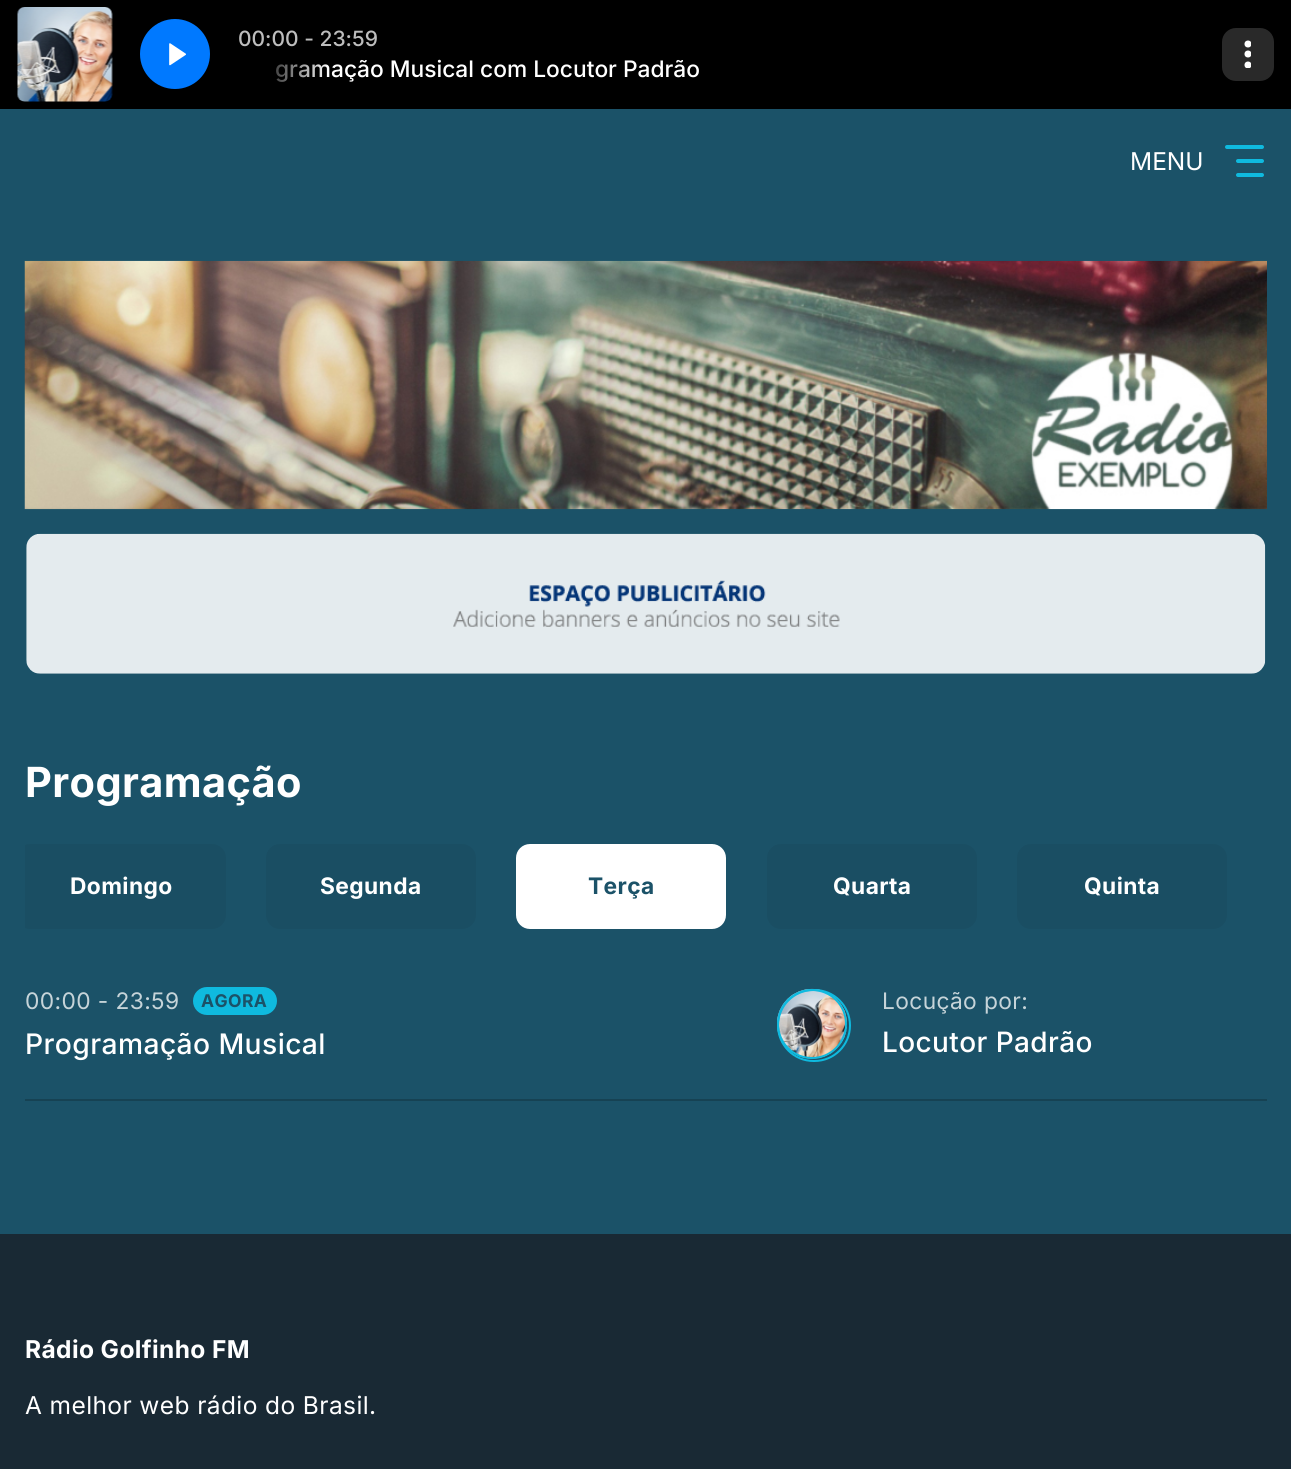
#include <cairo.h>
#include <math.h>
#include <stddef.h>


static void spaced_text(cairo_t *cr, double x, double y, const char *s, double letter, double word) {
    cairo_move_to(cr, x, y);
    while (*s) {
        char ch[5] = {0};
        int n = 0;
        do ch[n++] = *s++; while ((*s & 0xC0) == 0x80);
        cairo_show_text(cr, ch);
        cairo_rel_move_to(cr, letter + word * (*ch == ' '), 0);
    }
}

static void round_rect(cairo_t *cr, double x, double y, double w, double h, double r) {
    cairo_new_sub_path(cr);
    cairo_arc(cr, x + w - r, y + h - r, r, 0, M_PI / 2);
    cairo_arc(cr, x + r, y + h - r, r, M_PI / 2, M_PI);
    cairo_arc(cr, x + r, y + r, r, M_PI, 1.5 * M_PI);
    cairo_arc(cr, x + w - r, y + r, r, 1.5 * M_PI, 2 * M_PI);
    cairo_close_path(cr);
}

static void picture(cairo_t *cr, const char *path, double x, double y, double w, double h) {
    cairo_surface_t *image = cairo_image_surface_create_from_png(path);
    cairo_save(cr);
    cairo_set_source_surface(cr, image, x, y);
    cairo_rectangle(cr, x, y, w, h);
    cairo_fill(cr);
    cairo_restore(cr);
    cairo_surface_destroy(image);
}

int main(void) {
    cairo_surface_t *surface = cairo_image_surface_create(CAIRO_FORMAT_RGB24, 1291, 1469);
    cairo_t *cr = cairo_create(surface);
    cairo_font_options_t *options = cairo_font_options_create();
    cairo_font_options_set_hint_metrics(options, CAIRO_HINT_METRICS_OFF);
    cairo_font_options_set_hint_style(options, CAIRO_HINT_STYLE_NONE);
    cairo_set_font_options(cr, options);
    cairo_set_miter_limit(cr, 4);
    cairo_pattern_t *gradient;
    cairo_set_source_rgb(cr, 0.106, 0.322, 0.408);
    cairo_paint(cr);
    cairo_set_source_rgb(cr, 0, 0, 0);
    cairo_rectangle(cr, 0, 0, 1291, 109);
    cairo_fill(cr);
    picture(cr, "img1.png", 17, 7, 96, 95);
    cairo_set_source_rgb(cr, 0, 0.475, 1);
    cairo_arc(cr, 175, 54, 35, 0, 2 * M_PI);
    cairo_fill(cr);
    picture(cr, "img2.png", 169, 43, 17, 23);
    cairo_select_font_face(cr, "Inter Medium", CAIRO_FONT_SLANT_NORMAL, CAIRO_FONT_WEIGHT_NORMAL);
    cairo_set_font_size(cr, 21);
    cairo_set_source_rgb(cr, 0.741, 0.741, 0.741);
    cairo_move_to(cr, 238, 46);
    cairo_show_text(cr, "00:00 - 23:59");
    cairo_set_font_size(cr, 22.75);
    cairo_set_source_rgb(cr, 1, 1, 1);
    cairo_move_to(cr, 275, 77);
    cairo_show_text(cr, "gramação Musical com Locutor Padrão");
    gradient = cairo_pattern_create_linear(238, 69, 329, 69);
    cairo_pattern_add_color_stop_rgba(gradient, 0.2, 0, 0, 0, 1);
    cairo_pattern_add_color_stop_rgba(gradient, 1, 0, 0, 0, 0);
    cairo_set_source(cr, gradient);
    cairo_pattern_destroy(gradient);
    cairo_rectangle(cr, 276, 64, 51, 18);
    cairo_fill(cr);
    cairo_set_source_rgb(cr, 0.161, 0.161, 0.161);
    round_rect(cr, 1222, 28, 52, 53, 14);
    cairo_fill(cr);
    cairo_save(cr);
    cairo_rectangle(cr, 1244, 40, 7, 28);
    cairo_clip(cr);
    cairo_set_source_rgb(cr, 1, 1, 1);
    cairo_arc(cr, 1248, 65, 3.5, 0, 2 * M_PI);
    cairo_fill(cr);
    cairo_arc(cr, 1248, 54, 3.5, 0, 2 * M_PI);
    cairo_fill(cr);
    cairo_arc(cr, 1248, 44, 3.5, 0, 2 * M_PI);
    cairo_fill(cr);
    cairo_restore(cr);
    cairo_select_font_face(cr, "Inter", CAIRO_FONT_SLANT_NORMAL, CAIRO_FONT_WEIGHT_NORMAL);
    cairo_set_font_size(cr, 24.5);
    cairo_set_source_rgb(cr, 1, 1, 1);
    cairo_move_to(cr, 1130, 170);
    cairo_show_text(cr, "MENU");
    cairo_set_source_rgb(cr, 0.059, 0.729, 0.875);
    round_rect(cr, 1236, 159, 28, 4, 2);
    cairo_fill(cr);
    round_rect(cr, 1225, 145, 39, 4, 2);
    cairo_fill(cr);
    round_rect(cr, 1236, 173, 28, 4, 2);
    cairo_fill(cr);
    picture(cr, "img3.png", 24, 260, 1243, 250);
    picture(cr, "img4.png", 26, 533, 1240, 141);
    cairo_select_font_face(cr, "Inter", CAIRO_FONT_SLANT_NORMAL, CAIRO_FONT_WEIGHT_BOLD);
    cairo_set_font_size(cr, 41.5);
    cairo_set_source_rgb(cr, 1, 1, 1);
    spaced_text(cr, 25, 797, "Programação", 0.4, 0);
    cairo_save(cr);
    cairo_rectangle(cr, 25, 844, 1242, 106);
    cairo_clip(cr);
    cairo_set_source_rgb(cr, 0.102, 0.306, 0.388);
    round_rect(cr, 16, 844, 210, 85, 14);
    cairo_fill(cr);
    cairo_restore(cr);
    cairo_set_font_size(cr, 22.75);
    spaced_text(cr, 70, 894, "Domingo", 0.4, 0);
    cairo_set_source_rgb(cr, 0.102, 0.306, 0.388);
    round_rect(cr, 266, 844, 210, 85, 14);
    cairo_fill(cr);
    cairo_set_source_rgb(cr, 1, 1, 1);
    spaced_text(cr, 320, 894, "Segunda", 0.4, 0);
    round_rect(cr, 516, 844, 210, 85, 14);
    cairo_fill(cr);
    cairo_set_source_rgb(cr, 0.106, 0.322, 0.408);
    spaced_text(cr, 588, 894, "Terça", 0.4, 0);
    cairo_set_source_rgb(cr, 0.102, 0.306, 0.388);
    round_rect(cr, 767, 844, 210, 85, 14);
    cairo_fill(cr);
    cairo_set_source_rgb(cr, 1, 1, 1);
    spaced_text(cr, 833, 894, "Quarta", 0.4, 0);
    cairo_set_source_rgb(cr, 0.102, 0.306, 0.388);
    round_rect(cr, 1017, 844, 210, 85, 14);
    cairo_fill(cr);
    cairo_set_source_rgb(cr, 1, 1, 1);
    spaced_text(cr, 1084, 894, "Quinta", 0.4, 0);
    cairo_set_source_rgb(cr, 0.086, 0.259, 0.325);
    cairo_rectangle(cr, 25, 1099, 1242, 2);
    cairo_fill(cr);
    cairo_select_font_face(cr, "Inter", CAIRO_FONT_SLANT_NORMAL, CAIRO_FONT_WEIGHT_NORMAL);
    cairo_set_source_rgb(cr, 0.776, 0.831, 0.851);
    spaced_text(cr, 25, 1009, "00:00 - 23:59", 0.4, 0);
    cairo_set_source_rgb(cr, 0.059, 0.729, 0.875);
    round_rect(cr, 193, 987, 84, 28, 14);
    cairo_fill(cr);
    cairo_select_font_face(cr, "Inter", CAIRO_FONT_SLANT_NORMAL, CAIRO_FONT_WEIGHT_BOLD);
    cairo_set_font_size(cr, 17.5);
    cairo_set_source_rgb(cr, 0.106, 0.322, 0.408);
    spaced_text(cr, 201, 1007, "AGORA", 0.4, 0);
    cairo_select_font_face(cr, "Inter Medium", CAIRO_FONT_SLANT_NORMAL, CAIRO_FONT_WEIGHT_NORMAL);
    cairo_set_font_size(cr, 28.25);
    cairo_set_source_rgb(cr, 1, 1, 1);
    spaced_text(cr, 25, 1054, "Programação Musical", 0.4, 0);
    picture(cr, "img5.png", 777, 988, 70, 71);
    round_rect(cr, 778, 990, 72, 71, 35.5);
    cairo_set_source_rgb(cr, 0.059, 0.729, 0.875);
    cairo_stroke(cr);
    cairo_arc(cr, 812, 1024, 34, 0, 2 * M_PI);
    cairo_stroke(cr);
    cairo_select_font_face(cr, "Inter", CAIRO_FONT_SLANT_NORMAL, CAIRO_FONT_WEIGHT_NORMAL);
    cairo_set_font_size(cr, 22.75);
    cairo_set_source_rgb(cr, 0.776, 0.831, 0.851);
    spaced_text(cr, 882, 1009, "Locução por:", 0.4, 0);
    cairo_select_font_face(cr, "Inter Medium", CAIRO_FONT_SLANT_NORMAL, CAIRO_FONT_WEIGHT_NORMAL);
    cairo_set_font_size(cr, 28);
    cairo_set_source_rgb(cr, 1, 1, 1);
    spaced_text(cr, 882, 1052, "Locutor Padrão", 0.4, 0);
    cairo_set_source_rgb(cr, 0.098, 0.161, 0.204);
    cairo_rectangle(cr, 0, 1234, 1291, 235);
    cairo_fill(cr);
    cairo_select_font_face(cr, "Inter", CAIRO_FONT_SLANT_NORMAL, CAIRO_FONT_WEIGHT_BOLD);
    cairo_set_font_size(cr, 24.5);
    cairo_set_source_rgb(cr, 1, 1, 1);
    spaced_text(cr, 25, 1358, "Rádio Golfinho FM", 0.4, 0);
    cairo_select_font_face(cr, "Inter", CAIRO_FONT_SLANT_NORMAL, CAIRO_FONT_WEIGHT_NORMAL);
    spaced_text(cr, 25, 1414, "A melhor web rádio do Brasil.", 0.4, 0);
    cairo_surface_write_to_png(surface, "page.png");
    cairo_font_options_destroy(options);
    cairo_destroy(cr);
    cairo_surface_destroy(surface);
    return 0;
}
